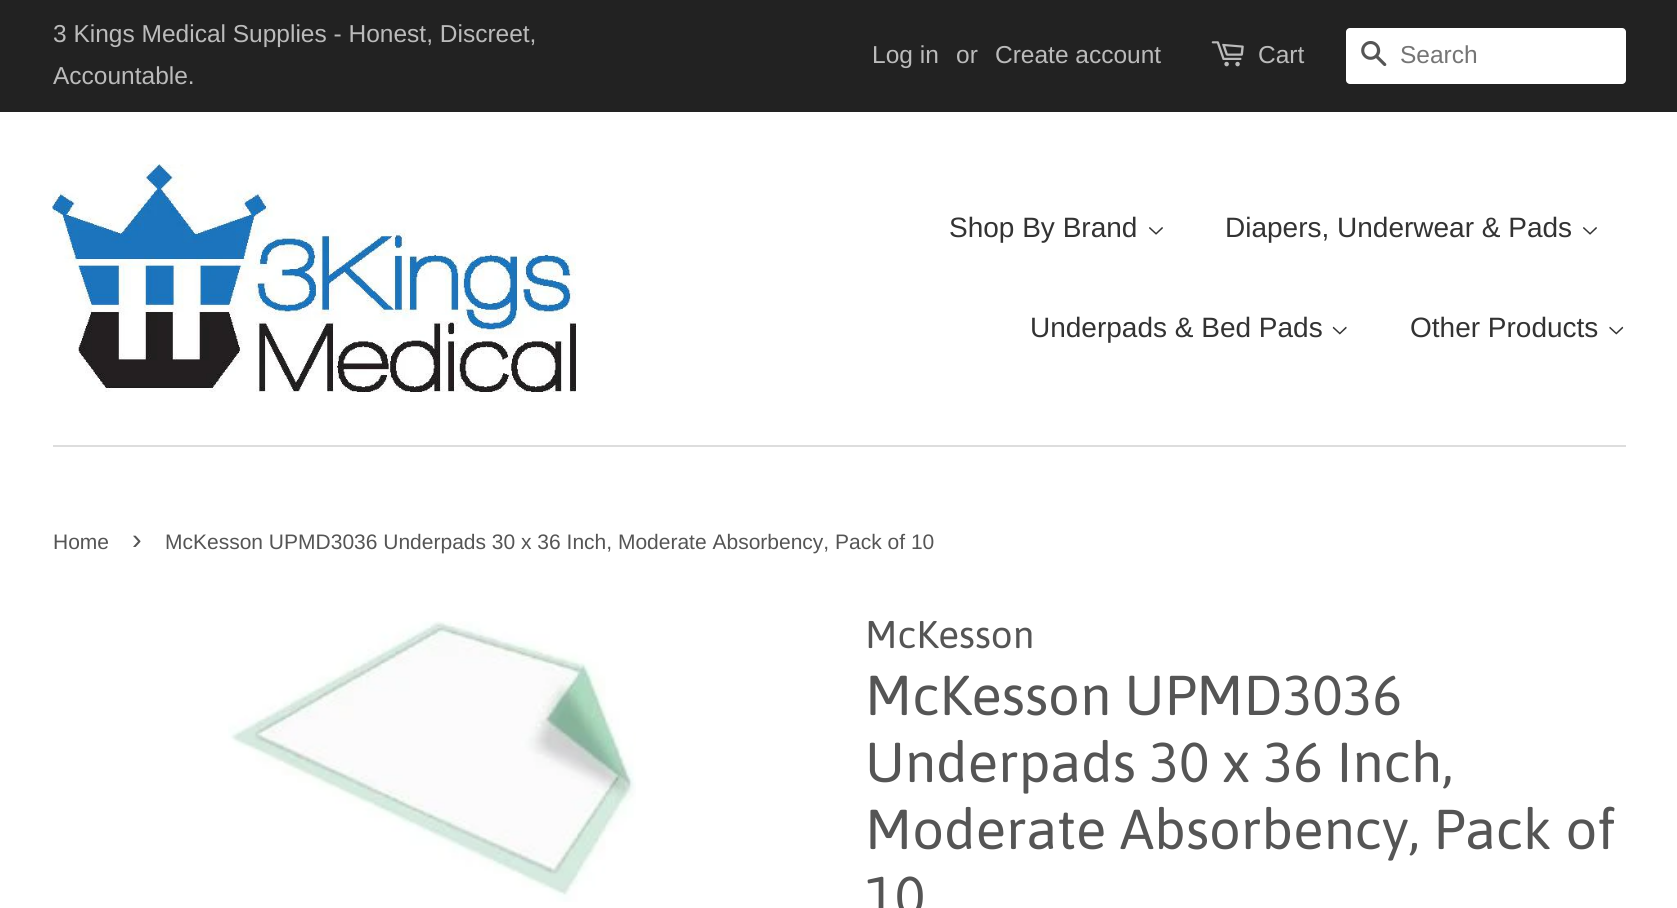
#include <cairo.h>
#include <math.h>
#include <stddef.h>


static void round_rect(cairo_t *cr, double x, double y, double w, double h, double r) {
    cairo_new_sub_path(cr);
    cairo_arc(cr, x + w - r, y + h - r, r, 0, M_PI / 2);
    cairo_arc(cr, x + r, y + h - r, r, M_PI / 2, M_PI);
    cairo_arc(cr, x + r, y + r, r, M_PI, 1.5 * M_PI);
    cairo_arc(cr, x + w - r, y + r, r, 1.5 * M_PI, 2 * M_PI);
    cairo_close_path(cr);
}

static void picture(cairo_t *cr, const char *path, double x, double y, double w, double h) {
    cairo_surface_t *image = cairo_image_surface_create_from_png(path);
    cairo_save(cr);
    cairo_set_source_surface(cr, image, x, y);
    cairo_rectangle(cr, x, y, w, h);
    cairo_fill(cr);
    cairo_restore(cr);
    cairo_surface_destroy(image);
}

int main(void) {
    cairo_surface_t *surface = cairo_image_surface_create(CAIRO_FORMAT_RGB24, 1677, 908);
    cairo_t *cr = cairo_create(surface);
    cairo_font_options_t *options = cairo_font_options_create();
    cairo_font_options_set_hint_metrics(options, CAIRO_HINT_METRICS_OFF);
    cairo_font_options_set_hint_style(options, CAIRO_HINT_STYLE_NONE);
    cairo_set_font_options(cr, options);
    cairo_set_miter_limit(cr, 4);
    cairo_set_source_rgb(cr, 1, 1, 1);
    cairo_paint(cr);
    cairo_set_source_rgb(cr, 0.133, 0.133, 0.133);
    cairo_rectangle(cr, 0, 0, 1677, 112);
    cairo_fill(cr);
    cairo_select_font_face(cr, "Liberation Sans", CAIRO_FONT_SLANT_NORMAL, CAIRO_FONT_WEIGHT_NORMAL);
    cairo_set_font_size(cr, 24.5);
    cairo_set_source_rgb(cr, 0.733, 0.733, 0.733);
    cairo_move_to(cr, 53, 42);
    cairo_show_text(cr, "3 Kings Medical Supplies - Honest, Discreet,");
    cairo_move_to(cr, 53, 84);
    cairo_show_text(cr, "Accountable.");
    cairo_move_to(cr, 872, 63);
    cairo_show_text(cr, "Log in");
    cairo_move_to(cr, 956, 63);
    cairo_show_text(cr, "or");
    cairo_move_to(cr, 995, 63);
    cairo_show_text(cr, "Create account");
    picture(cr, "img1.png", 1211, 41, 33, 26);
    cairo_move_to(cr, 1258, 63);
    cairo_show_text(cr, "Cart");
    cairo_set_source_rgb(cr, 1, 1, 1);
    round_rect(cr, 1346, 28, 280, 56, 4);
    cairo_fill(cr);
    picture(cr, "img2.png", 1361, 41, 26, 25);
    cairo_set_source_rgb(cr, 0.459, 0.459, 0.459);
    cairo_move_to(cr, 1400, 63);
    cairo_show_text(cr, "Search");
    cairo_set_source_rgb(cr, 0.867, 0.867, 0.867);
    cairo_rectangle(cr, 53, 445, 1573, 2);
    cairo_fill(cr);
    picture(cr, "img3.png", 52, 164, 524, 228);
    cairo_set_font_size(cr, 28);
    cairo_set_source_rgb(cr, 0.2, 0.2, 0.2);
    cairo_move_to(cr, 949, 237);
    cairo_show_text(cr, "Shop By Brand");
    picture(cr, "img4.png", 1149, 227, 14, 8);
    cairo_move_to(cr, 1225, 237);
    cairo_show_text(cr, "Diapers, Underwear & Pads");
    picture(cr, "img4.png", 1583, 227, 14, 8);
    cairo_move_to(cr, 1030, 337);
    cairo_show_text(cr, "Underpads & Bed Pads");
    picture(cr, "img5.png", 1332, 326, 15, 9);
    cairo_move_to(cr, 1410, 337);
    cairo_show_text(cr, "Other Products");
    picture(cr, "img6.png", 1609, 326, 15, 9);
    cairo_set_font_size(cr, 21);
    cairo_set_source_rgb(cr, 0.333, 0.333, 0.333);
    cairo_move_to(cr, 53, 549);
    cairo_show_text(cr, "Home");
    cairo_set_font_size(cr, 29);
    cairo_move_to(cr, 132, 549);
    cairo_show_text(cr, "›");
    cairo_set_font_size(cr, 21);
    cairo_move_to(cr, 165, 549);
    cairo_show_text(cr, "McKesson UPMD3036 Underpads 30 x 36 Inch, Moderate Absorbency, Pack of 10");
    picture(cr, "img7.png", 228, 621, 408, 281);
    cairo_select_font_face(cr, "Asap", CAIRO_FONT_SLANT_NORMAL, CAIRO_FONT_WEIGHT_NORMAL);
    cairo_set_font_size(cr, 38.5);
    cairo_move_to(cr, 865, 648);
    cairo_show_text(cr, "McKesson");
    cairo_set_font_size(cr, 56);
    cairo_move_to(cr, 865, 715);
    cairo_show_text(cr, "McKesson UPMD3036");
    cairo_move_to(cr, 865, 782);
    cairo_show_text(cr, "Underpads 30 x 36 Inch,");
    cairo_move_to(cr, 865, 849);
    cairo_show_text(cr, "Moderate Absorbency, Pack of");
    cairo_move_to(cr, 865, 916);
    cairo_show_text(cr, "10");
    cairo_surface_write_to_png(surface, "page.png");
    cairo_font_options_destroy(options);
    cairo_destroy(cr);
    cairo_surface_destroy(surface);
    return 0;
}
